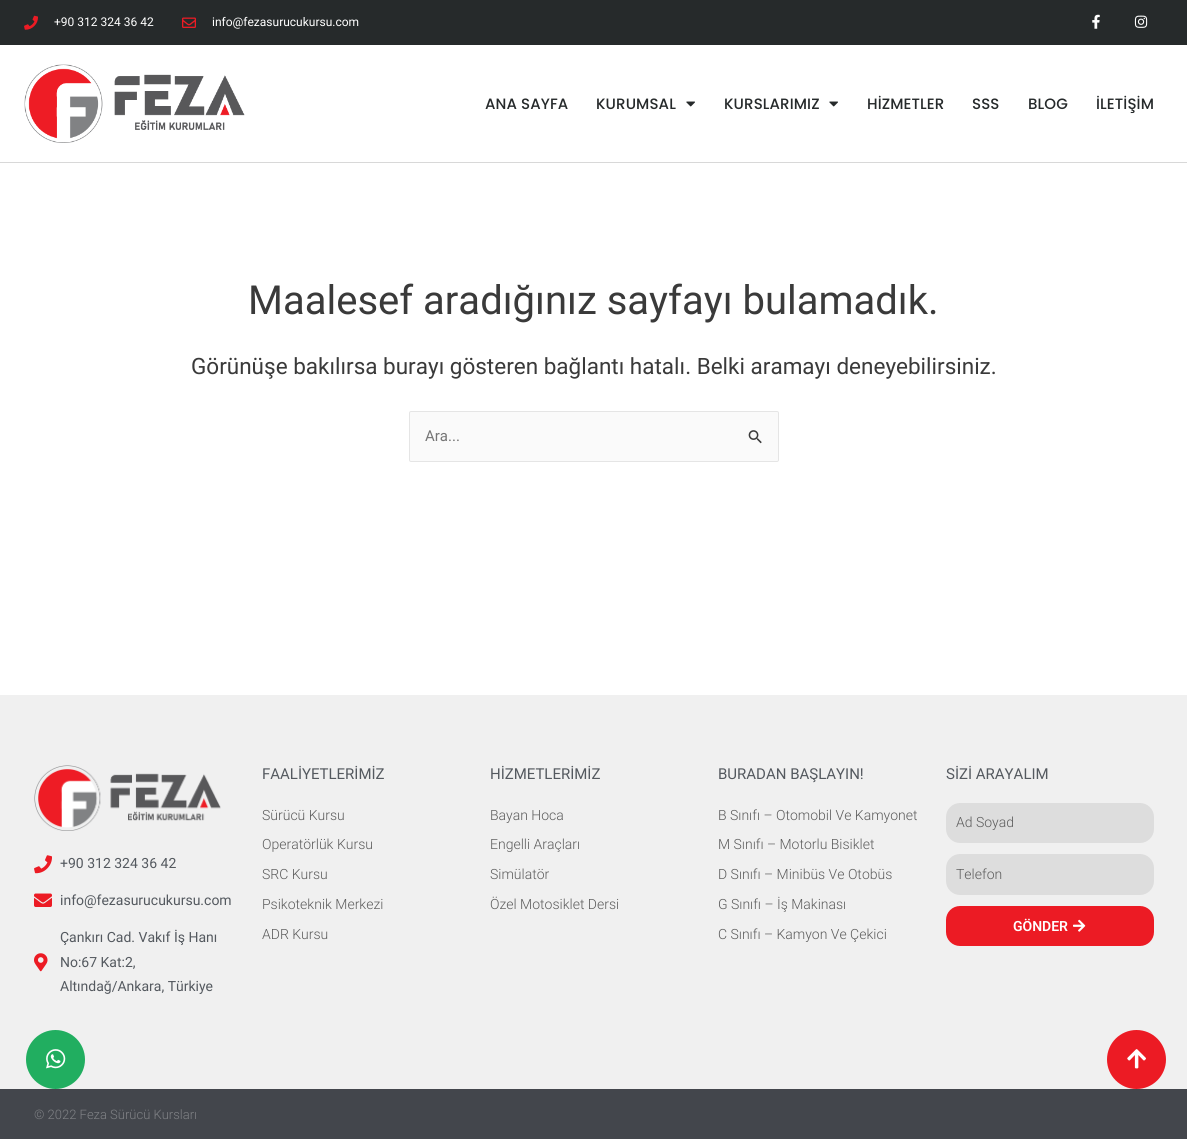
#include <cairo.h>
#include <math.h>
#include <stddef.h>


static void spaced_text(cairo_t *cr, double x, double y, const char *s, double letter, double word) {
    cairo_move_to(cr, x, y);
    while (*s) {
        char ch[5] = {0};
        int n = 0;
        do ch[n++] = *s++; while ((*s & 0xC0) == 0x80);
        cairo_show_text(cr, ch);
        cairo_rel_move_to(cr, letter + word * (*ch == ' '), 0);
    }
}

static void round_rect(cairo_t *cr, double x, double y, double w, double h, double r) {
    cairo_new_sub_path(cr);
    cairo_arc(cr, x + w - r, y + h - r, r, 0, M_PI / 2);
    cairo_arc(cr, x + r, y + h - r, r, M_PI / 2, M_PI);
    cairo_arc(cr, x + r, y + r, r, M_PI, 1.5 * M_PI);
    cairo_arc(cr, x + w - r, y + r, r, 1.5 * M_PI, 2 * M_PI);
    cairo_close_path(cr);
}

static void picture(cairo_t *cr, const char *path, double x, double y, double w, double h) {
    cairo_surface_t *image = cairo_image_surface_create_from_png(path);
    cairo_save(cr);
    cairo_set_source_surface(cr, image, x, y);
    cairo_rectangle(cr, x, y, w, h);
    cairo_fill(cr);
    cairo_restore(cr);
    cairo_surface_destroy(image);
}

int main(void) {
    cairo_surface_t *surface = cairo_image_surface_create(CAIRO_FORMAT_RGB24, 1187, 1139);
    cairo_t *cr = cairo_create(surface);
    cairo_font_options_t *options = cairo_font_options_create();
    cairo_font_options_set_hint_metrics(options, CAIRO_HINT_METRICS_OFF);
    cairo_font_options_set_hint_style(options, CAIRO_HINT_STYLE_NONE);
    cairo_set_font_options(cr, options);
    cairo_set_miter_limit(cr, 4);
    cairo_set_source_rgb(cr, 1, 1, 1);
    cairo_paint(cr);
    cairo_set_source_rgb(cr, 0.149, 0.165, 0.169);
    cairo_rectangle(cr, 0, 0, 1187, 45);
    cairo_fill(cr);
    picture(cr, "img1.png", 24, 15, 14, 15);
    cairo_select_font_face(cr, "Roboto", CAIRO_FONT_SLANT_NORMAL, CAIRO_FONT_WEIGHT_NORMAL);
    cairo_set_font_size(cr, 12);
    cairo_set_source_rgb(cr, 1, 1, 1);
    cairo_move_to(cr, 54, 26);
    cairo_show_text(cr, "+90 312 324 36 42");
    picture(cr, "img2.png", 182, 17, 14, 11);
    cairo_move_to(cr, 212, 26);
    cairo_show_text(cr, "info@fezasurucukursu.com");
    picture(cr, "img3.png", 1092, 14, 8, 15);
    picture(cr, "img4.png", 1134, 15, 14, 13);
    cairo_set_source_rgb(cr, 0.847, 0.847, 0.847);
    cairo_rectangle(cr, 0, 162, 1187, 1);
    cairo_fill(cr);
    picture(cr, "img5.png", 24, 64, 221, 79);
    cairo_select_font_face(cr, "Poppins Medium", CAIRO_FONT_SLANT_NORMAL, CAIRO_FONT_WEIGHT_NORMAL);
    cairo_set_font_size(cr, 15);
    cairo_set_source_rgb(cr, 0.149, 0.165, 0.169);
    spaced_text(cr, 485, 109, "ANA SAYFA", 0.1, 0);
    spaced_text(cr, 596, 109, "KURUMSAL", 0.1, 0);
    picture(cr, "img6.png", 686, 101, 9, 6);
    spaced_text(cr, 724, 109, "KURSLARIMIZ", 0.1, 0);
    picture(cr, "img6.png", 829, 101, 9, 6);
    spaced_text(cr, 867, 109, "HİZMETLER", 0.1, 0);
    spaced_text(cr, 972, 109, "SSS", 0.1, 0);
    spaced_text(cr, 1028, 109, "BLOG", 0.1, 0);
    spaced_text(cr, 1096, 109, "İLETİŞİM", 0.1, 0);
    cairo_select_font_face(cr, "Roboto", CAIRO_FONT_SLANT_NORMAL, CAIRO_FONT_WEIGHT_NORMAL);
    cairo_set_font_size(cr, 40);
    cairo_set_source_rgb(cr, 0.227, 0.227, 0.227);
    cairo_move_to(cr, 248, 314);
    cairo_show_text(cr, "Maalesef aradığınız sayfayı bulamadık.");
    cairo_set_font_size(cr, 22.5);
    cairo_move_to(cr, 191, 374);
    cairo_show_text(cr, "Görünüşe bakılırsa burayı gösteren bağlantı hatalı. Belki aramayı deneyebilirsiniz.");
    cairo_set_source_rgb(cr, 0.98, 0.98, 0.98);
    round_rect(cr, 409.5, 411.5, 369, 50, 1.5);
    cairo_fill_preserve(cr);
    cairo_set_source_rgb(cr, 0.898, 0.898, 0.898);
    cairo_set_line_width(cr, 1);
    cairo_stroke(cr);
    cairo_set_font_size(cr, 15);
    cairo_set_source_rgb(cr, 0.459, 0.459, 0.459);
    cairo_move_to(cr, 425, 441);
    cairo_show_text(cr, "Ara...");
    picture(cr, "img7.png", 748, 430, 14, 14);
    cairo_set_source_rgb(cr, 0.941, 0.941, 0.941);
    cairo_rectangle(cr, 0, 695, 1187, 394);
    cairo_fill(cr);
    picture(cr, "img8.png", 34, 765, 187, 66);
    picture(cr, "img9.png", 34, 855, 18, 19);
    cairo_set_font_size(cr, 14);
    cairo_set_source_rgb(cr, 0.329, 0.349, 0.373);
    cairo_move_to(cr, 60, 868);
    cairo_show_text(cr, "+90 312 324 36 42");
    picture(cr, "img10.png", 34, 893, 18, 14);
    cairo_move_to(cr, 60, 905);
    cairo_show_text(cr, "info@fezasurucukursu.com");
    picture(cr, "img11.png", 34, 953, 14, 19);
    cairo_move_to(cr, 60, 942);
    cairo_show_text(cr, "Çankırı Cad. Vakıf İş Hanı");
    cairo_move_to(cr, 60, 967);
    cairo_show_text(cr, "No:67 Kat:2,");
    cairo_move_to(cr, 60, 991);
    cairo_show_text(cr, "Altındağ/Ankara, Türkiye");
    cairo_set_source_rgb(cr, 0.129, 0.682, 0.376);
    cairo_new_path(cr);
    cairo_arc(cr, 55.5, 1059.5, 29.5, 0, 2 * M_PI);
    cairo_fill(cr);
    picture(cr, "img12.png", 46, 1049, 20, 20);
    cairo_set_source_rgb(cr, 0.925, 0.106, 0.141);
    cairo_arc(cr, 1136.5, 1059.5, 29.5, 0, 2 * M_PI);
    cairo_fill(cr);
    picture(cr, "img13.png", 1127, 1049, 19, 20);
    cairo_set_font_size(cr, 15);
    cairo_set_source_rgb(cr, 0.329, 0.349, 0.373);
    cairo_move_to(cr, 262, 779);
    cairo_show_text(cr, "FAALİYETLERİMİZ");
    cairo_select_font_face(cr, "Roboto Light", CAIRO_FONT_SLANT_NORMAL, CAIRO_FONT_WEIGHT_NORMAL);
    cairo_set_font_size(cr, 14);
    cairo_set_source_rgb(cr, 0.361, 0.361, 0.361);
    cairo_move_to(cr, 262, 820);
    cairo_show_text(cr, "Sürücü Kursu");
    cairo_move_to(cr, 262, 849);
    cairo_show_text(cr, "Operatörlük Kursu");
    cairo_move_to(cr, 262, 879);
    cairo_show_text(cr, "SRC Kursu");
    cairo_move_to(cr, 262, 909);
    cairo_show_text(cr, "Psikoteknik Merkezi");
    cairo_move_to(cr, 262, 939);
    cairo_show_text(cr, "ADR Kursu");
    cairo_select_font_face(cr, "Roboto", CAIRO_FONT_SLANT_NORMAL, CAIRO_FONT_WEIGHT_NORMAL);
    cairo_set_font_size(cr, 15);
    cairo_set_source_rgb(cr, 0.329, 0.349, 0.373);
    cairo_move_to(cr, 490, 779);
    cairo_show_text(cr, "HİZMETLERİMİZ");
    cairo_select_font_face(cr, "Roboto Light", CAIRO_FONT_SLANT_NORMAL, CAIRO_FONT_WEIGHT_NORMAL);
    cairo_set_font_size(cr, 14);
    cairo_set_source_rgb(cr, 0.361, 0.361, 0.361);
    cairo_move_to(cr, 490, 820);
    cairo_show_text(cr, "Bayan Hoca");
    cairo_move_to(cr, 490, 849);
    cairo_show_text(cr, "Engelli Araçları");
    cairo_move_to(cr, 490, 879);
    cairo_show_text(cr, "Simülatör");
    cairo_move_to(cr, 490, 909);
    cairo_show_text(cr, "Özel Motosiklet Dersi");
    cairo_select_font_face(cr, "Roboto", CAIRO_FONT_SLANT_NORMAL, CAIRO_FONT_WEIGHT_NORMAL);
    cairo_set_font_size(cr, 15);
    cairo_set_source_rgb(cr, 0.329, 0.349, 0.373);
    cairo_move_to(cr, 718, 779);
    cairo_show_text(cr, "BURADAN BAŞLAYIN!");
    cairo_select_font_face(cr, "Roboto Light", CAIRO_FONT_SLANT_NORMAL, CAIRO_FONT_WEIGHT_NORMAL);
    cairo_set_font_size(cr, 14);
    cairo_set_source_rgb(cr, 0.361, 0.361, 0.361);
    cairo_move_to(cr, 718, 820);
    cairo_show_text(cr, "B Sınıfı – Otomobil Ve Kamyonet");
    cairo_move_to(cr, 718, 849);
    cairo_show_text(cr, "M Sınıfı – Motorlu Bisiklet");
    cairo_move_to(cr, 718, 879);
    cairo_show_text(cr, "D Sınıfı – Minibüs Ve Otobüs");
    cairo_move_to(cr, 718, 909);
    cairo_show_text(cr, "G Sınıfı – İş Makinası");
    cairo_move_to(cr, 718, 939);
    cairo_show_text(cr, "C Sınıfı – Kamyon Ve Çekici");
    cairo_select_font_face(cr, "Roboto", CAIRO_FONT_SLANT_NORMAL, CAIRO_FONT_WEIGHT_NORMAL);
    cairo_set_font_size(cr, 15);
    cairo_set_source_rgb(cr, 0.329, 0.349, 0.373);
    cairo_move_to(cr, 946, 779);
    cairo_show_text(cr, "SİZİ ARAYALIM");
    cairo_set_source_rgb(cr, 0.867, 0.867, 0.867);
    round_rect(cr, 946, 803, 208, 40, 14);
    cairo_fill(cr);
    cairo_select_font_face(cr, "Roboto Light", CAIRO_FONT_SLANT_NORMAL, CAIRO_FONT_WEIGHT_NORMAL);
    cairo_set_font_size(cr, 14);
    cairo_set_source_rgb(cr, 0.361, 0.361, 0.361);
    cairo_move_to(cr, 956, 827);
    cairo_show_text(cr, "Ad Soyad");
    cairo_set_source_rgb(cr, 0.867, 0.867, 0.867);
    round_rect(cr, 946, 854, 208, 41, 14);
    cairo_fill(cr);
    cairo_set_source_rgb(cr, 0.361, 0.361, 0.361);
    cairo_move_to(cr, 956, 879);
    cairo_show_text(cr, "Telefon");
    cairo_set_source_rgb(cr, 0.925, 0.106, 0.141);
    round_rect(cr, 946, 906, 208, 40, 14);
    cairo_fill(cr);
    cairo_select_font_face(cr, "Roboto SemiBold", CAIRO_FONT_SLANT_NORMAL, CAIRO_FONT_WEIGHT_NORMAL);
    cairo_set_source_rgb(cr, 1, 1, 1);
    cairo_move_to(cr, 1013, 931);
    cairo_show_text(cr, "GÖNDER");
    picture(cr, "img14.png", 1073, 919, 13, 13);
    cairo_set_source_rgb(cr, 0.263, 0.275, 0.298);
    cairo_rectangle(cr, 0, 1089, 1187, 50);
    cairo_fill(cr);
    cairo_select_font_face(cr, "Roboto Light", CAIRO_FONT_SLANT_NORMAL, CAIRO_FONT_WEIGHT_NORMAL);
    cairo_set_font_size(cr, 13);
    cairo_set_source_rgb(cr, 0.498, 0.506, 0.522);
    cairo_move_to(cr, 34, 1119);
    cairo_show_text(cr, "© 2022 Feza Sürücü Kursları");
    cairo_surface_write_to_png(surface, "page.png");
    cairo_font_options_destroy(options);
    cairo_destroy(cr);
    cairo_surface_destroy(surface);
    return 0;
}
